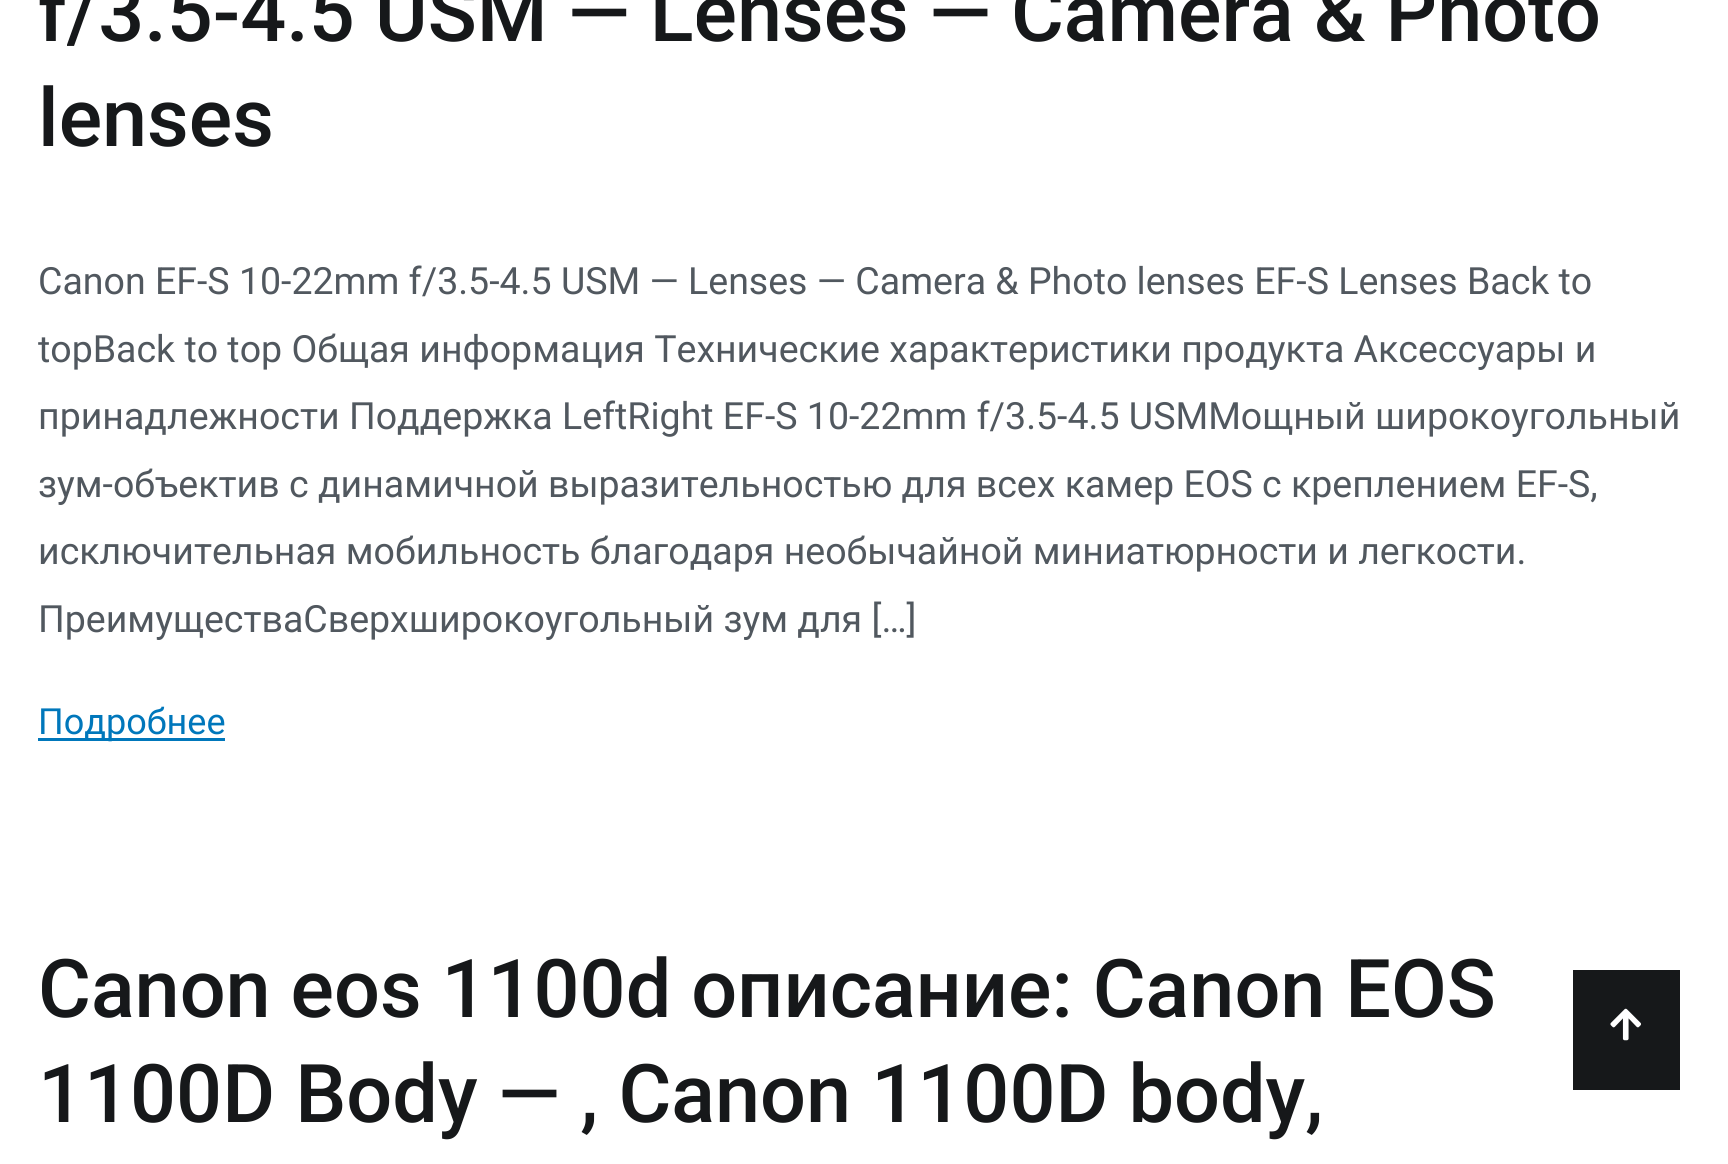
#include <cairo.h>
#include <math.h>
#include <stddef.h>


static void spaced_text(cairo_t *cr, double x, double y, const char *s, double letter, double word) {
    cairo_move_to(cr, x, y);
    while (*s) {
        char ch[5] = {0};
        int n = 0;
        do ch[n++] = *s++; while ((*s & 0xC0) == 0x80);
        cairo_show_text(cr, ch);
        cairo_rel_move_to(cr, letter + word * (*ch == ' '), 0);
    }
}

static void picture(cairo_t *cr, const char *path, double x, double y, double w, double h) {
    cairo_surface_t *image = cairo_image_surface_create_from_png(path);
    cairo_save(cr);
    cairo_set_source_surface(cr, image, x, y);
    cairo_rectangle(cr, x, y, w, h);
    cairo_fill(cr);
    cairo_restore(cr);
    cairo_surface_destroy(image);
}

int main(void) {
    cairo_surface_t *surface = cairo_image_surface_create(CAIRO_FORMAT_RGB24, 1728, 1164);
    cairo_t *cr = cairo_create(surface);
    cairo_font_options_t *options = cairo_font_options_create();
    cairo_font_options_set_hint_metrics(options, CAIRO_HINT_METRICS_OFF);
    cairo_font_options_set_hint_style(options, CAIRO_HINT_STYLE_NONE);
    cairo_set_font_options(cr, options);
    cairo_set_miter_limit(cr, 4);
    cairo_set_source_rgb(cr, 1, 1, 1);
    cairo_paint(cr);
    cairo_select_font_face(cr, "Roboto Medium", CAIRO_FONT_SLANT_NORMAL, CAIRO_FONT_WEIGHT_NORMAL);
    cairo_set_font_size(cr, 81);
    cairo_set_source_rgb(cr, 0.086, 0.094, 0.102);
    spaced_text(cr, 38, 41, "f/3.5-4.5 USM — Lenses — Camera & Photo", 0, -0.25);
    cairo_move_to(cr, 38, 146);
    cairo_show_text(cr, "lenses");
    cairo_select_font_face(cr, "Roboto", CAIRO_FONT_SLANT_NORMAL, CAIRO_FONT_WEIGHT_NORMAL);
    cairo_set_font_size(cr, 37.5);
    cairo_set_source_rgb(cr, 0.318, 0.345, 0.373);
    cairo_move_to(cr, 38, 294);
    cairo_show_text(cr, "Canon EF-S 10-22mm f/3.5-4.5 USM — Lenses — Camera & Photo lenses EF-S Lenses Back to");
    cairo_move_to(cr, 38, 362);
    cairo_show_text(cr, "topBack to top Общая информация Технические характеристики продукта Аксессуары и");
    cairo_move_to(cr, 38, 429);
    cairo_show_text(cr, "принадлежности Поддержка LeftRight EF-S 10-22mm f/3.5-4.5 USMМощный широкоугольный");
    cairo_move_to(cr, 38, 497);
    cairo_show_text(cr, "зум-объектив с динамичной выразительностью для всех камер EOS с креплением EF-S,");
    cairo_move_to(cr, 38, 564);
    cairo_show_text(cr, "исключительная мобильность благодаря необычайной миниатюрности и легкости.");
    cairo_move_to(cr, 38, 632);
    cairo_show_text(cr, "ПреимуществаСверхширокоугольный зум для […]");
    cairo_set_source_rgb(cr, 0, 0.467, 0.733);
    cairo_rectangle(cr, 38, 738, 187, 3);
    cairo_fill(cr);
    cairo_set_font_size(cr, 36);
    cairo_move_to(cr, 38, 734);
    cairo_show_text(cr, "Подробнее");
    cairo_select_font_face(cr, "Roboto Medium", CAIRO_FONT_SLANT_NORMAL, CAIRO_FONT_WEIGHT_NORMAL);
    cairo_set_font_size(cr, 81);
    cairo_set_source_rgb(cr, 0.086, 0.094, 0.102);
    spaced_text(cr, 38, 1017, "Canon eos 1100d описание: Canon EOS", 0, -0.25);
    cairo_move_to(cr, 38, 1122);
    cairo_show_text(cr, "1100D Body — , Canon 1100D body,");
    cairo_rectangle(cr, 1573, 970, 107, 120);
    cairo_fill(cr);
    picture(cr, "img1.png", 1610, 1008, 31, 33);
    cairo_surface_write_to_png(surface, "page.png");
    cairo_font_options_destroy(options);
    cairo_destroy(cr);
    cairo_surface_destroy(surface);
    return 0;
}
